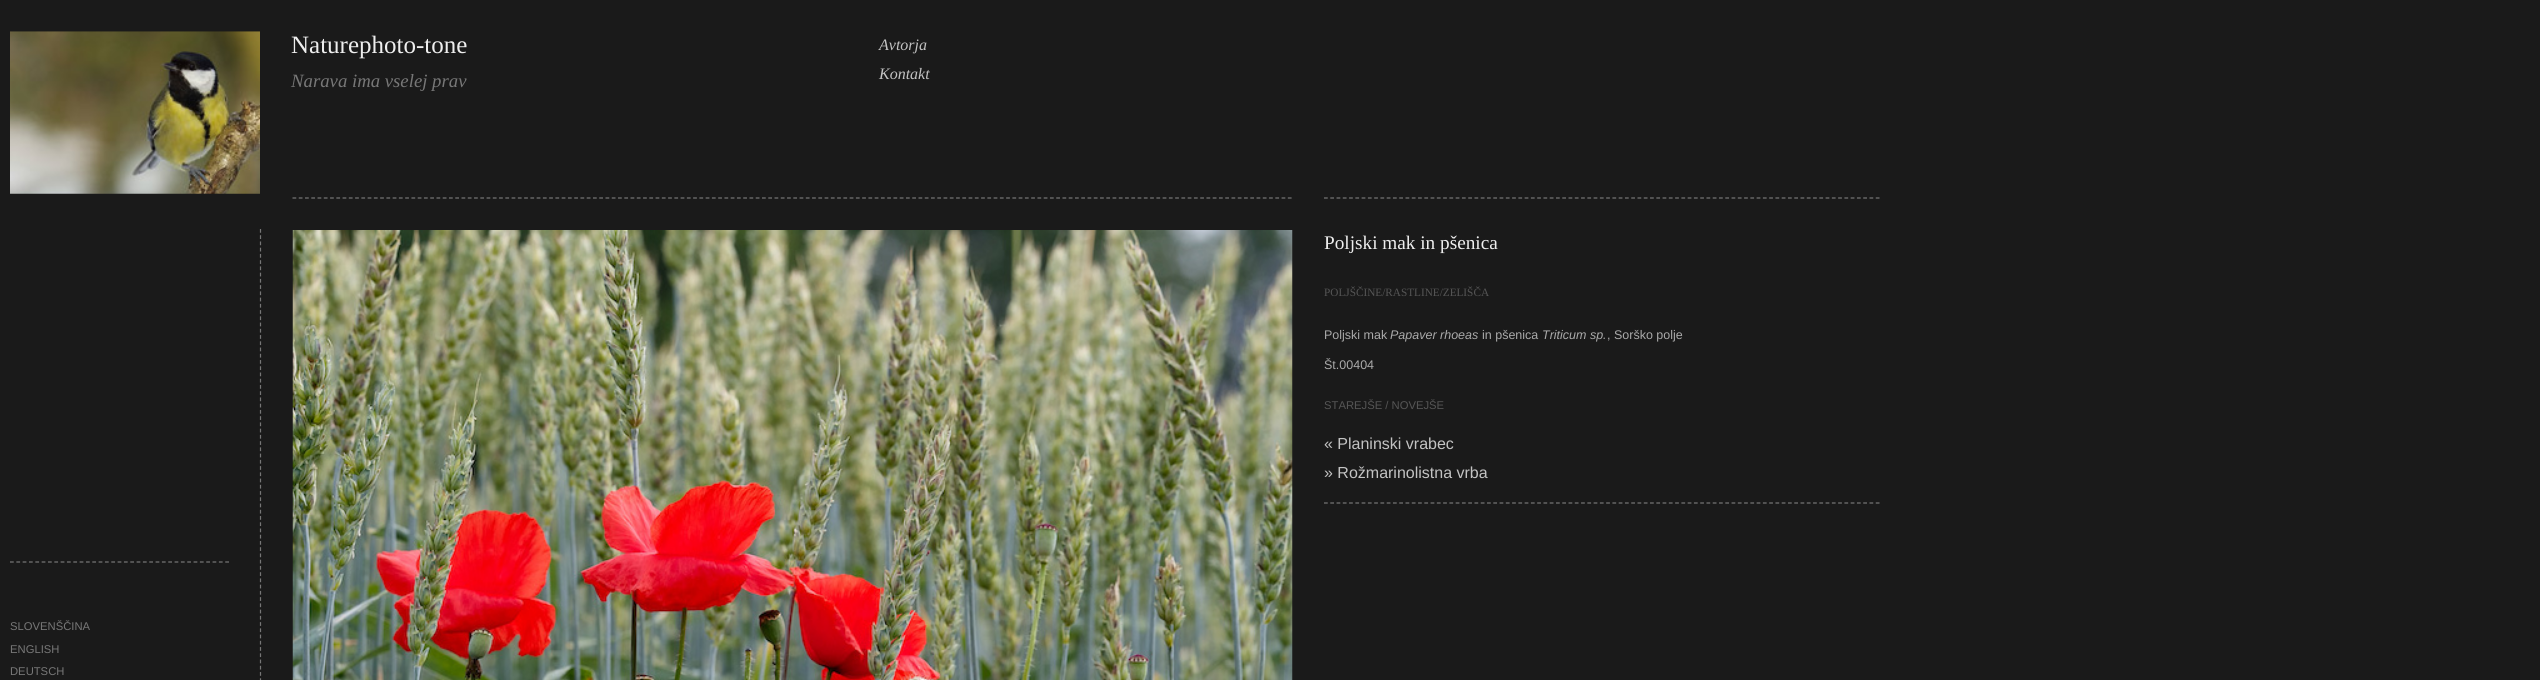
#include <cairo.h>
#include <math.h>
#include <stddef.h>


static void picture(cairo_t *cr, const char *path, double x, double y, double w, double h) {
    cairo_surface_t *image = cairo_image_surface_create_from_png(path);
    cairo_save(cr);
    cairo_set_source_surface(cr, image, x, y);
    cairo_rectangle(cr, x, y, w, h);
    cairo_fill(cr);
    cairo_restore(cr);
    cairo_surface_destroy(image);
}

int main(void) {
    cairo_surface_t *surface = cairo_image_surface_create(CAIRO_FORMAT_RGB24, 2540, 680);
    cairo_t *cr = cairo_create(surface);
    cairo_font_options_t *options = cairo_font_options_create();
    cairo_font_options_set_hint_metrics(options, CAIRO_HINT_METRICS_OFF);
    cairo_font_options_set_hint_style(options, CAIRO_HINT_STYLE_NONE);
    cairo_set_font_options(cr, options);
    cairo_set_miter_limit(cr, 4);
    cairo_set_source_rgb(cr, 0.102, 0.102, 0.102);
    cairo_paint(cr);
    picture(cr, "img1.png", 10, 31, 250, 163);
    cairo_select_font_face(cr, "Liberation Serif", CAIRO_FONT_SLANT_NORMAL, CAIRO_FONT_WEIGHT_NORMAL);
    cairo_set_font_size(cr, 25);
    cairo_set_source_rgb(cr, 0.933, 0.933, 0.933);
    cairo_move_to(cr, 291, 53);
    cairo_show_text(cr, "Naturephoto-tone");
    cairo_select_font_face(cr, "Liberation Serif", CAIRO_FONT_SLANT_ITALIC, CAIRO_FONT_WEIGHT_NORMAL);
    cairo_set_font_size(cr, 18.75);
    cairo_set_source_rgb(cr, 0.467, 0.467, 0.467);
    cairo_move_to(cr, 291, 87);
    cairo_show_text(cr, "Narava ima vselej prav");
    cairo_set_font_size(cr, 16);
    cairo_set_source_rgb(cr, 0.765, 0.765, 0.765);
    cairo_move_to(cr, 879, 50);
    cairo_show_text(cr, "Avtorja");
    cairo_move_to(cr, 879, 79);
    cairo_show_text(cr, "Kontakt");
    cairo_new_path(cr);
    cairo_move_to(cr, 292.5, 198);
    cairo_line_to(cr, 1292.5, 198);
    cairo_set_source_rgb(cr, 0.467, 0.467, 0.467);
    cairo_set_line_width(cr, 1.2);
    cairo_set_dash(cr, (double[]){3.75, 2.51}, 2, 0);
    cairo_stroke(cr);
    picture(cr, "img2.png", 292, 230, 1001, 450);
    cairo_new_path(cr);
    cairo_move_to(cr, 1324, 198);
    cairo_line_to(cr, 1880, 198);
    cairo_set_dash(cr, (double[]){3.75, 2.52}, 2, 0);
    cairo_stroke(cr);
    cairo_new_path(cr);
    cairo_move_to(cr, 1324, 503);
    cairo_line_to(cr, 1880, 503);
    cairo_stroke(cr);
    cairo_select_font_face(cr, "Liberation Serif", CAIRO_FONT_SLANT_NORMAL, CAIRO_FONT_WEIGHT_NORMAL);
    cairo_set_font_size(cr, 19.25);
    cairo_set_source_rgb(cr, 0.933, 0.933, 0.933);
    cairo_move_to(cr, 1324, 249);
    cairo_show_text(cr, "Poljski mak in pšenica");
    cairo_set_font_size(cr, 11.25);
    cairo_set_source_rgb(cr, 0.333, 0.333, 0.333);
    cairo_move_to(cr, 1324, 296);
    cairo_show_text(cr, "POLJŠČINE/RASTLINE/ZELIŠČA");
    cairo_select_font_face(cr, "Liberation Sans", CAIRO_FONT_SLANT_NORMAL, CAIRO_FONT_WEIGHT_NORMAL);
    cairo_set_font_size(cr, 12.5);
    cairo_set_source_rgb(cr, 0.667, 0.667, 0.667);
    cairo_move_to(cr, 1324, 339);
    cairo_show_text(cr, "Poljski mak");
    cairo_select_font_face(cr, "Liberation Sans", CAIRO_FONT_SLANT_ITALIC, CAIRO_FONT_WEIGHT_NORMAL);
    cairo_move_to(cr, 1390, 339);
    cairo_show_text(cr, "Papaver rhoeas");
    cairo_select_font_face(cr, "Liberation Sans", CAIRO_FONT_SLANT_NORMAL, CAIRO_FONT_WEIGHT_NORMAL);
    cairo_move_to(cr, 1482, 339);
    cairo_show_text(cr, "in pšenica");
    cairo_select_font_face(cr, "Liberation Sans", CAIRO_FONT_SLANT_ITALIC, CAIRO_FONT_WEIGHT_NORMAL);
    cairo_move_to(cr, 1542, 339);
    cairo_show_text(cr, "Triticum sp.");
    cairo_select_font_face(cr, "Liberation Sans", CAIRO_FONT_SLANT_NORMAL, CAIRO_FONT_WEIGHT_NORMAL);
    cairo_move_to(cr, 1607, 339);
    cairo_show_text(cr, ", Sorško polje");
    cairo_move_to(cr, 1324, 369);
    cairo_show_text(cr, "Št.00404");
    cairo_set_font_size(cr, 11.25);
    cairo_set_source_rgb(cr, 0.333, 0.333, 0.333);
    cairo_move_to(cr, 1324, 409);
    cairo_show_text(cr, "STAREJŠE / NOVEJŠE");
    cairo_set_font_size(cr, 16);
    cairo_set_source_rgb(cr, 0.765, 0.765, 0.765);
    cairo_move_to(cr, 1324, 449);
    cairo_show_text(cr, "« Planinski vrabec");
    cairo_move_to(cr, 1324, 478);
    cairo_show_text(cr, "» Rožmarinolistna vrba");
    cairo_new_path(cr);
    cairo_move_to(cr, 260.5, 229);
    cairo_line_to(cr, 260.5, 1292.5);
    cairo_set_source_rgb(cr, 0.467, 0.467, 0.467);
    cairo_set_dash(cr, (double[]){3.75, 2.49}, 2, 0);
    cairo_stroke(cr);
    cairo_new_path(cr);
    cairo_move_to(cr, 10, 562);
    cairo_line_to(cr, 229, 562);
    cairo_set_dash(cr, (double[]){3.75, 2.58}, 2, 0);
    cairo_stroke(cr);
    cairo_set_font_size(cr, 11.25);
    cairo_move_to(cr, 10, 630);
    cairo_show_text(cr, "SLOVENŠČINA");
    cairo_move_to(cr, 10, 653);
    cairo_show_text(cr, "ENGLISH");
    cairo_move_to(cr, 10, 675);
    cairo_show_text(cr, "DEUTSCH");
    cairo_surface_write_to_png(surface, "page.png");
    cairo_font_options_destroy(options);
    cairo_destroy(cr);
    cairo_surface_destroy(surface);
    return 0;
}
